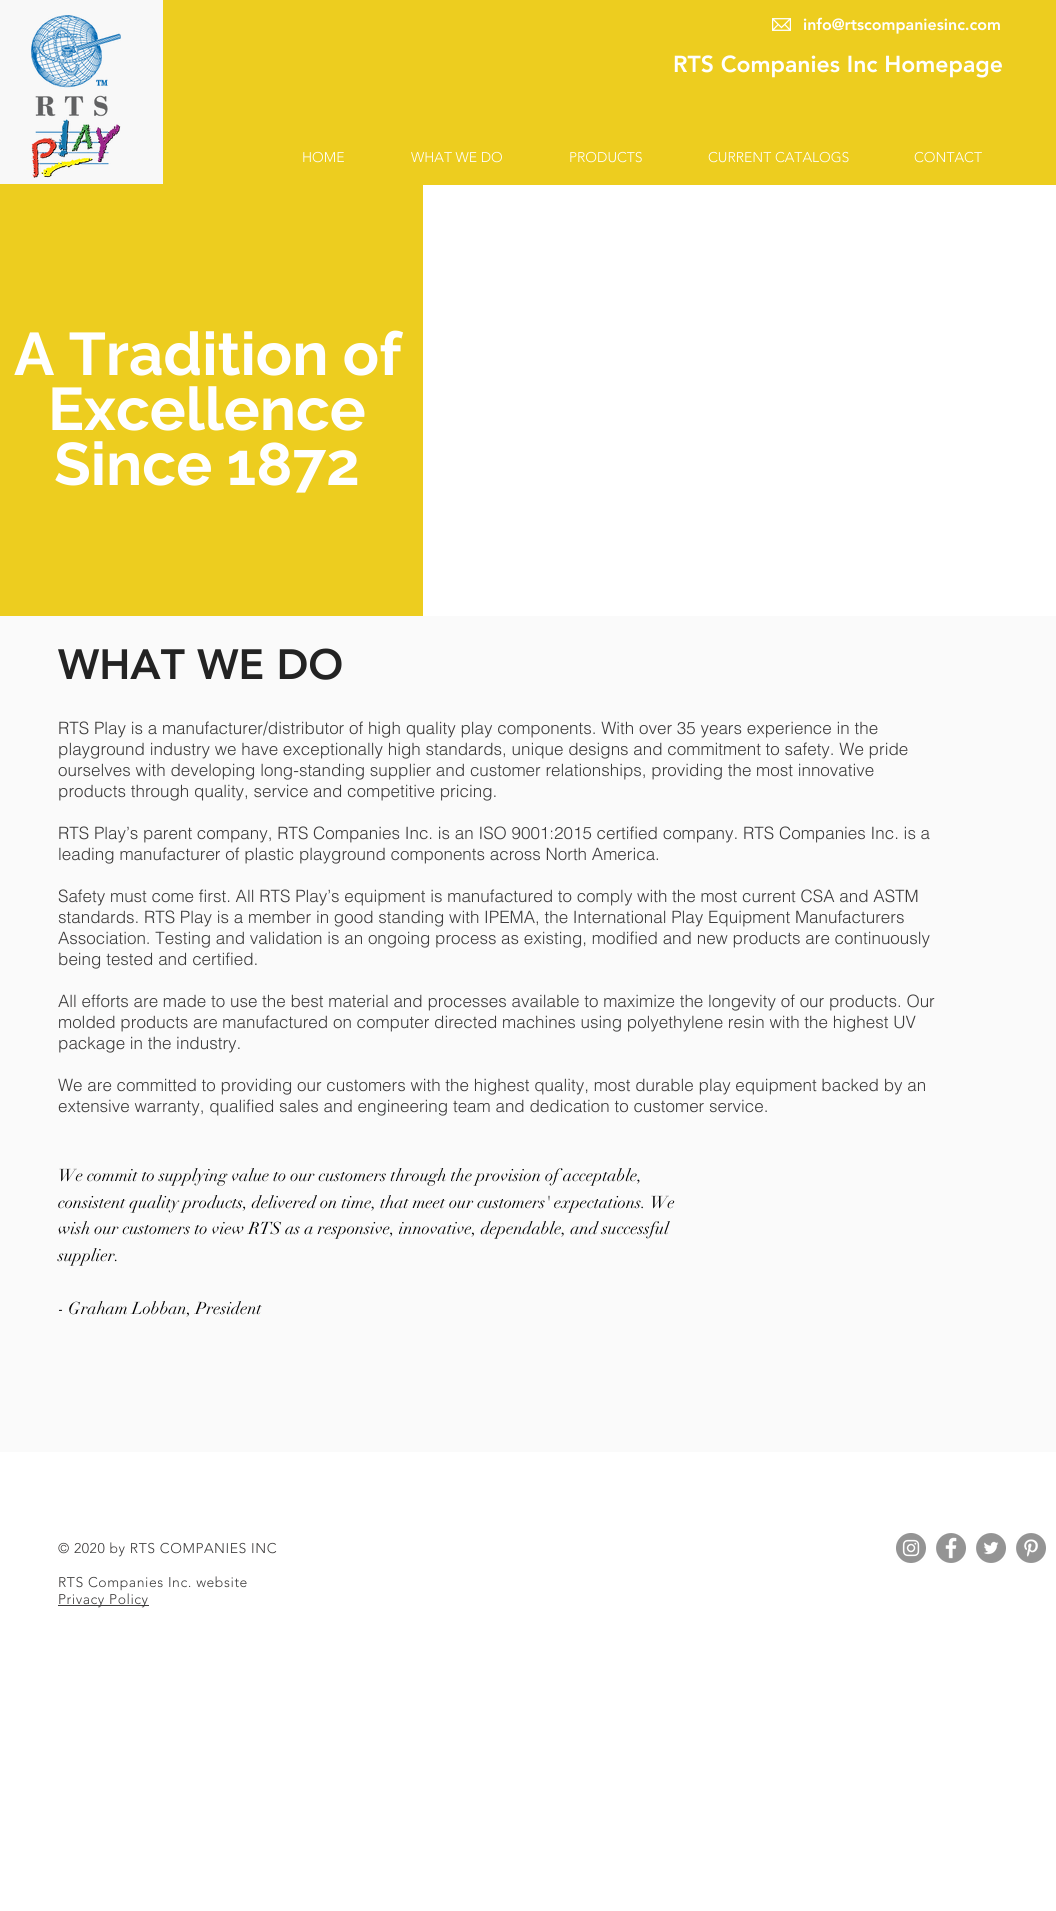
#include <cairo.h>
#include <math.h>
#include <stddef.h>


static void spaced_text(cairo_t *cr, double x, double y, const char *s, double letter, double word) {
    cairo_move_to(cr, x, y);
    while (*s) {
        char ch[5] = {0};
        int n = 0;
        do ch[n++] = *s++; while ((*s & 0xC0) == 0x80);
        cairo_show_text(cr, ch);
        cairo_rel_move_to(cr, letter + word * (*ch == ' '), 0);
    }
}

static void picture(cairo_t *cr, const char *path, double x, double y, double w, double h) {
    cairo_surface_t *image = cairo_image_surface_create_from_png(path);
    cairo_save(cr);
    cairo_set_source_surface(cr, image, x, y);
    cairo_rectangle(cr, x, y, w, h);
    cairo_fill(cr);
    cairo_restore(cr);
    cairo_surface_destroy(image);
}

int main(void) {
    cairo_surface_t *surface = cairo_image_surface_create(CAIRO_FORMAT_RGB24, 1056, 1911);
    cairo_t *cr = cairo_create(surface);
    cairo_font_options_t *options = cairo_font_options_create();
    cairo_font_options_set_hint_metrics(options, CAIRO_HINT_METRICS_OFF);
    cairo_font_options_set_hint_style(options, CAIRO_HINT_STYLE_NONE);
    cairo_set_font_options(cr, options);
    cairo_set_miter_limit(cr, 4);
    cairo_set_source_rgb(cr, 1, 1, 1);
    cairo_paint(cr);
    cairo_set_source_rgb(cr, 0.929, 0.804, 0.122);
    cairo_rectangle(cr, 0, 0, 1056, 185);
    cairo_fill(cr);
    cairo_set_source_rgb(cr, 0.969, 0.969, 0.969);
    cairo_rectangle(cr, 0, 0, 163, 184);
    cairo_fill(cr);
    picture(cr, "img1.png", 31, 15, 90, 163);
    picture(cr, "img2.png", 772, 18, 19, 13);
    cairo_select_font_face(cr, "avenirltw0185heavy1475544 Black", CAIRO_FONT_SLANT_NORMAL, CAIRO_FONT_WEIGHT_NORMAL);
    cairo_set_font_size(cr, 16);
    cairo_set_source_rgb(cr, 1, 1, 1);
    cairo_move_to(cr, 803, 30);
    cairo_show_text(cr, "info@rtscompaniesinc.com");
    cairo_set_font_size(cr, 23);
    cairo_move_to(cr, 673, 72);
    cairo_show_text(cr, "RTS Companies Inc Homepage");
    cairo_select_font_face(cr, "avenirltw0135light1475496 Light", CAIRO_FONT_SLANT_NORMAL, CAIRO_FONT_WEIGHT_NORMAL);
    cairo_set_font_size(cr, 14);
    cairo_move_to(cr, 302, 162);
    cairo_show_text(cr, "HOME");
    cairo_move_to(cr, 411, 162);
    cairo_show_text(cr, "WHAT WE DO");
    cairo_move_to(cr, 569, 162);
    cairo_show_text(cr, "PRODUCTS");
    cairo_move_to(cr, 708, 162);
    cairo_show_text(cr, "CURRENT CATALOGS");
    cairo_move_to(cr, 914, 162);
    cairo_show_text(cr, "CONTACT");
    cairo_set_source_rgb(cr, 0.929, 0.804, 0.122);
    cairo_rectangle(cr, 0, 185, 423, 431);
    cairo_fill(cr);
    cairo_select_font_face(cr, "Raleway", CAIRO_FONT_SLANT_NORMAL, CAIRO_FONT_WEIGHT_BOLD);
    cairo_set_font_size(cr, 60);
    cairo_set_source_rgb(cr, 1, 1, 1);
    cairo_move_to(cr, 14, 375);
    cairo_show_text(cr, "A Tradition of");
    cairo_move_to(cr, 48, 430);
    cairo_show_text(cr, "Excellence");
    cairo_move_to(cr, 54, 485);
    cairo_show_text(cr, "Since 1872");
    cairo_set_source_rgb(cr, 0.98, 0.98, 0.98);
    cairo_rectangle(cr, 0, 616, 1056, 836);
    cairo_fill(cr);
    cairo_select_font_face(cr, "avenirltw0185heavy1475544 Black", CAIRO_FONT_SLANT_NORMAL, CAIRO_FONT_WEIGHT_NORMAL);
    cairo_set_font_size(cr, 42);
    cairo_set_source_rgb(cr, 0.137, 0.137, 0.137);
    cairo_move_to(cr, 58, 679);
    cairo_show_text(cr, "WHAT WE DO");
    cairo_select_font_face(cr, "helvetica Light", CAIRO_FONT_SLANT_NORMAL, CAIRO_FONT_WEIGHT_NORMAL);
    cairo_set_font_size(cr, 17);
    cairo_set_source_rgb(cr, 0.231, 0.227, 0.227);
    cairo_move_to(cr, 58, 734);
    cairo_show_text(cr, "RTS Play is a manufacturer/distributor of high quality play components. With over 35 years experience in the");
    cairo_move_to(cr, 58, 755);
    cairo_show_text(cr, "playground industry we have exceptionally high standards, unique designs and commitment to safety. We pride");
    cairo_move_to(cr, 58, 776);
    cairo_show_text(cr, "ourselves with developing long-standing supplier and customer relationships, providing the most innovative");
    cairo_move_to(cr, 58, 797);
    cairo_show_text(cr, "products through quality, service and competitive pricing.");
    cairo_move_to(cr, 58, 839);
    cairo_show_text(cr, "RTS Play’s parent company, RTS Companies Inc. is an ISO 9001:2015 certified company. RTS Companies Inc. is a");
    cairo_move_to(cr, 58, 860);
    cairo_show_text(cr, "leading manufacturer of plastic playground components across North America.");
    cairo_move_to(cr, 58, 902);
    cairo_show_text(cr, "Safety must come first. All RTS Play’s equipment is manufactured to comply with the most current CSA and ASTM");
    cairo_move_to(cr, 58, 923);
    cairo_show_text(cr, "standards. RTS Play is a member in good standing with IPEMA, the International Play Equipment Manufacturers");
    cairo_move_to(cr, 58, 944);
    cairo_show_text(cr, "Association. Testing and validation is an ongoing process as existing, modified and new products are continuously");
    cairo_move_to(cr, 58, 965);
    cairo_show_text(cr, "being tested and certified.");
    cairo_move_to(cr, 58, 1007);
    cairo_show_text(cr, "All efforts are made to use the best material and processes available to maximize the longevity of our products. Our");
    cairo_move_to(cr, 58, 1028);
    cairo_show_text(cr, "molded products are manufactured on computer directed machines using polyethylene resin with the highest UV");
    cairo_move_to(cr, 58, 1049);
    cairo_show_text(cr, "package in the industry.");
    cairo_move_to(cr, 58, 1091);
    cairo_show_text(cr, "We are committed to providing our customers with the highest quality, most durable play equipment backed by an");
    cairo_move_to(cr, 58, 1112);
    cairo_show_text(cr, "extensive warranty, qualified sales and engineering team and dedication to customer service.");
    cairo_select_font_face(cr, "didot", CAIRO_FONT_SLANT_NORMAL, CAIRO_FONT_WEIGHT_NORMAL);
    cairo_set_source_rgb(cr, 0, 0, 0);
    cairo_move_to(cr, 58, 1181);
    cairo_show_text(cr, "We commit to supplying value to our customers through the provision of acceptable,");
    cairo_move_to(cr, 58, 1208);
    cairo_show_text(cr, "consistent quality products, delivered on time, that meet our customers' expectations. We");
    cairo_move_to(cr, 58, 1234);
    cairo_show_text(cr, "wish our customers to view RTS as a responsive, innovative, dependable, and successful");
    cairo_move_to(cr, 58, 1261);
    cairo_show_text(cr, "supplier.");
    cairo_move_to(cr, 58, 1314);
    cairo_show_text(cr, "- Graham Lobban, President");
    cairo_select_font_face(cr, "avenirltw0135light1475496 Light", CAIRO_FONT_SLANT_NORMAL, CAIRO_FONT_WEIGHT_NORMAL);
    cairo_set_font_size(cr, 14);
    cairo_set_source_rgb(cr, 0.231, 0.227, 0.227);
    spaced_text(cr, 58, 1553, "© 2020 by RTS COMPANIES INC", 0.55, 0);
    spaced_text(cr, 58, 1587, "RTS Companies Inc. website", 0.55, 0);
    cairo_rectangle(cr, 58, 1605, 91, 1);
    cairo_fill(cr);
    spaced_text(cr, 58, 1604, "Privacy Policy", 0.55, 0);
    picture(cr, "img3.png", 896, 1533, 30, 30);
    picture(cr, "img4.png", 936, 1533, 30, 30);
    picture(cr, "img5.png", 976, 1533, 30, 30);
    picture(cr, "img6.png", 1016, 1533, 30, 30);
    cairo_surface_write_to_png(surface, "page.png");
    cairo_font_options_destroy(options);
    cairo_destroy(cr);
    cairo_surface_destroy(surface);
    return 0;
}
